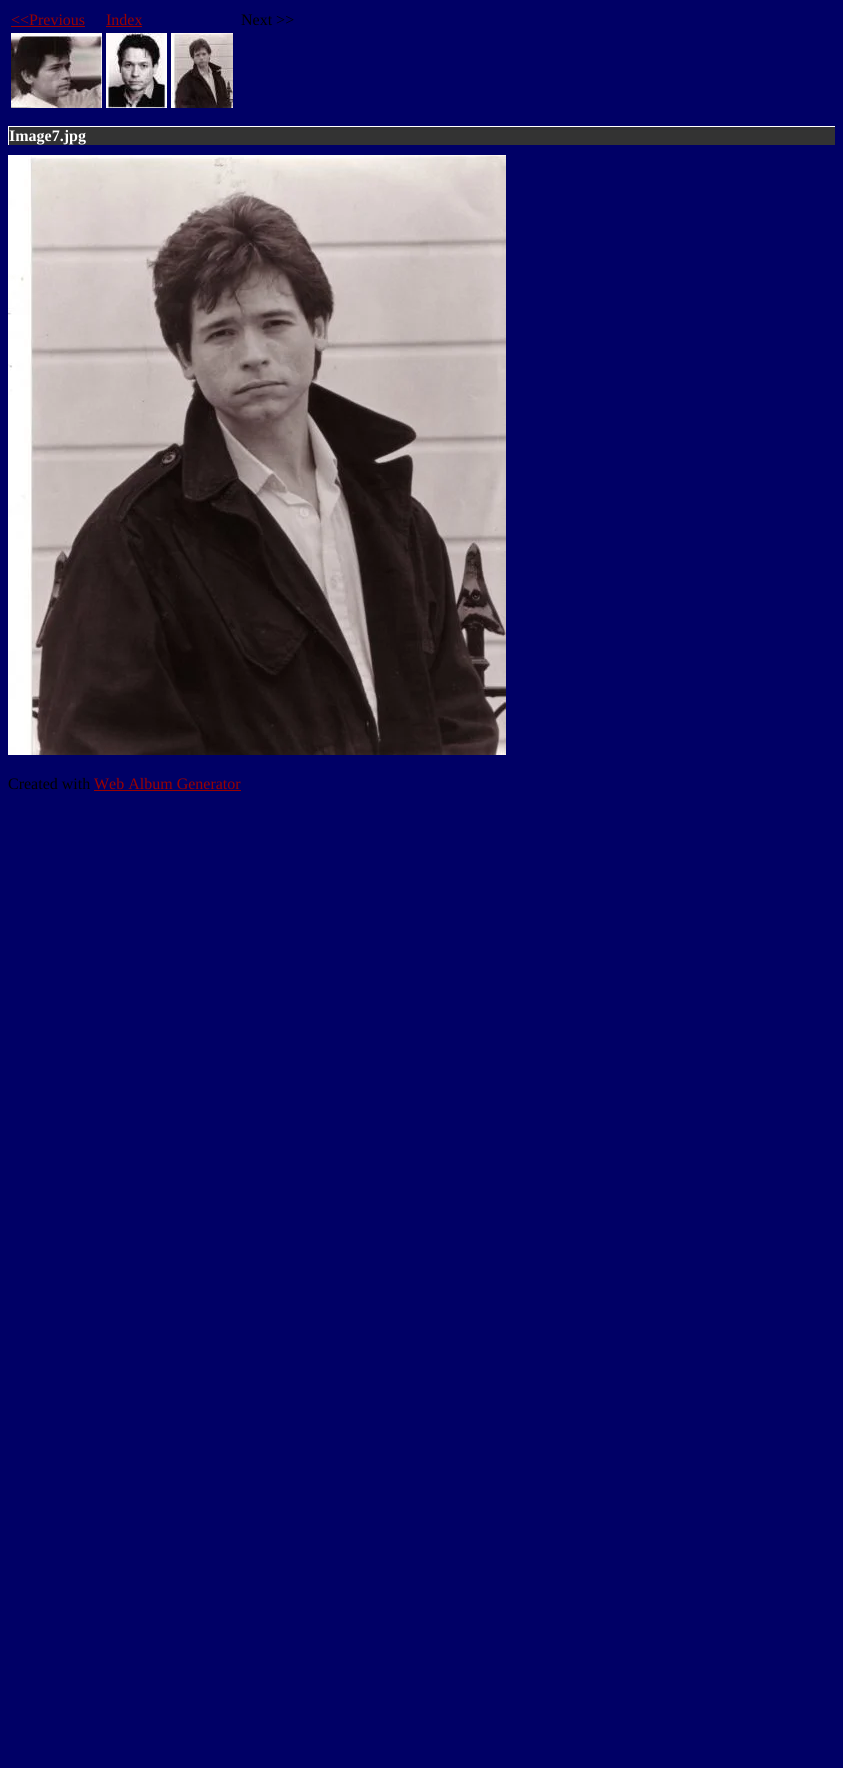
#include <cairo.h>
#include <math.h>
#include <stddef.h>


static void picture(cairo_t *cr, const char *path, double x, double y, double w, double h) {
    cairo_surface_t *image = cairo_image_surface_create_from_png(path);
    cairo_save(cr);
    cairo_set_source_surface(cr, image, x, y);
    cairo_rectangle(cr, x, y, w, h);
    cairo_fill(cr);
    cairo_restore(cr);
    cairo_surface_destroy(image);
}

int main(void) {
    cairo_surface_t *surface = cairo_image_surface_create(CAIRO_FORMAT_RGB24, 843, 1768);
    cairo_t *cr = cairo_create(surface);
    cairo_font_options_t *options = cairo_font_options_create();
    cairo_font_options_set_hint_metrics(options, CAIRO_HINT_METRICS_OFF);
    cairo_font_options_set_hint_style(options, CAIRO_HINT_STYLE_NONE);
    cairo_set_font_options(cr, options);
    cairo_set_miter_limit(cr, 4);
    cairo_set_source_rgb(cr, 0, 0, 0.4);
    cairo_paint(cr);
    cairo_select_font_face(cr, "Liberation Serif", CAIRO_FONT_SLANT_NORMAL, CAIRO_FONT_WEIGHT_NORMAL);
    cairo_set_font_size(cr, 16);
    cairo_set_source_rgb(cr, 0.6, 0, 0);
    cairo_move_to(cr, 11, 25);
    cairo_show_text(cr, "<<Previous");
    cairo_rectangle(cr, 11, 26, 74, 1);
    cairo_fill(cr);
    cairo_move_to(cr, 106, 25);
    cairo_show_text(cr, "Index");
    cairo_rectangle(cr, 106, 26, 36, 1);
    cairo_fill(cr);
    cairo_set_source_rgb(cr, 0, 0, 0);
    cairo_move_to(cr, 241, 25);
    cairo_show_text(cr, "Next >>");
    picture(cr, "img1.png", 11, 33, 91, 75);
    picture(cr, "img2.png", 106, 33, 61, 75);
    picture(cr, "img3.png", 171, 33, 62, 75);
    cairo_set_source_rgb(cr, 0.2, 0.2, 0.2);
    cairo_rectangle(cr, 9, 127, 826, 18);
    cairo_fill(cr);
    cairo_set_source_rgb(cr, 1, 1, 1);
    cairo_rectangle(cr, 8, 126, 827, 1);
    cairo_fill(cr);
    cairo_rectangle(cr, 8, 126, 1, 19);
    cairo_fill(cr);
    cairo_select_font_face(cr, "Liberation Serif", CAIRO_FONT_SLANT_NORMAL, CAIRO_FONT_WEIGHT_BOLD);
    cairo_move_to(cr, 9, 141);
    cairo_show_text(cr, "Image7.jpg");
    picture(cr, "img4.png", 8, 155, 498, 600);
    cairo_select_font_face(cr, "Liberation Serif", CAIRO_FONT_SLANT_NORMAL, CAIRO_FONT_WEIGHT_NORMAL);
    cairo_set_source_rgb(cr, 0, 0, 0);
    cairo_move_to(cr, 8, 789);
    cairo_show_text(cr, "Created with");
    cairo_set_source_rgb(cr, 0.6, 0, 0);
    cairo_move_to(cr, 94, 789);
    cairo_show_text(cr, "Web Album Generator");
    cairo_rectangle(cr, 94, 790, 147, 1);
    cairo_fill(cr);
    cairo_surface_write_to_png(surface, "page.png");
    cairo_font_options_destroy(options);
    cairo_destroy(cr);
    cairo_surface_destroy(surface);
    return 0;
}
